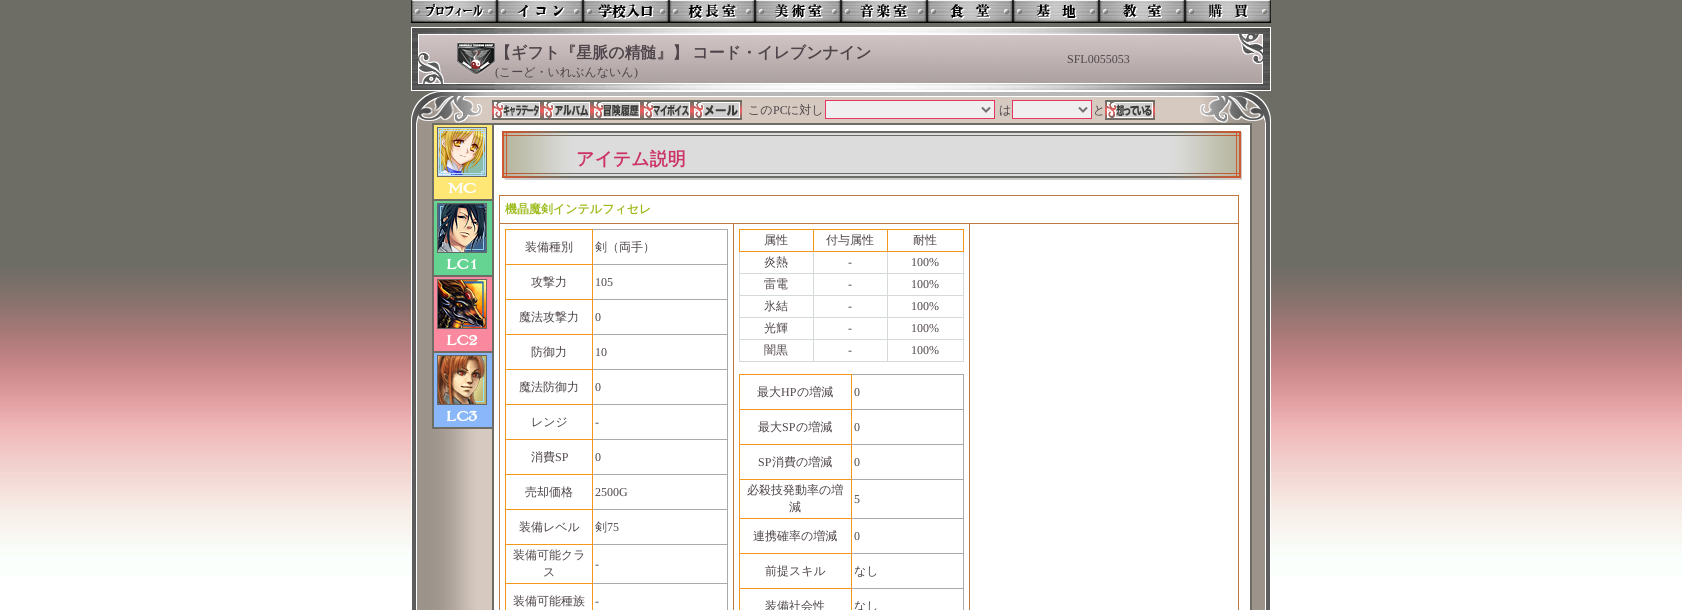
#include <cairo.h>
#include <math.h>
#include <stddef.h>


static void spaced_text(cairo_t *cr, double x, double y, const char *s, double letter, double word) {
    cairo_move_to(cr, x, y);
    while (*s) {
        char ch[5] = {0};
        int n = 0;
        do ch[n++] = *s++; while ((*s & 0xC0) == 0x80);
        cairo_show_text(cr, ch);
        cairo_rel_move_to(cr, letter + word * (*ch == ' '), 0);
    }
}

static void picture(cairo_t *cr, const char *path, double x, double y, double w, double h) {
    cairo_surface_t *image = cairo_image_surface_create_from_png(path);
    cairo_save(cr);
    cairo_set_source_surface(cr, image, x, y);
    cairo_rectangle(cr, x, y, w, h);
    cairo_fill(cr);
    cairo_restore(cr);
    cairo_surface_destroy(image);
}

int main(void) {
    cairo_surface_t *surface = cairo_image_surface_create(CAIRO_FORMAT_RGB24, 1682, 610);
    cairo_t *cr = cairo_create(surface);
    cairo_font_options_t *options = cairo_font_options_create();
    cairo_font_options_set_hint_metrics(options, CAIRO_HINT_METRICS_OFF);
    cairo_font_options_set_hint_style(options, CAIRO_HINT_STYLE_NONE);
    cairo_set_font_options(cr, options);
    cairo_set_miter_limit(cr, 4);
    cairo_set_source_rgb(cr, 1, 1, 1);
    cairo_paint(cr);
    picture(cr, "img1.png", 0, 0, 1682, 576);
    picture(cr, "img2.png", 411, 0, 86, 23);
    picture(cr, "img3.png", 497, 0, 86, 23);
    picture(cr, "img4.png", 583, 0, 86, 23);
    picture(cr, "img5.png", 669, 0, 86, 23);
    picture(cr, "img6.png", 755, 0, 86, 23);
    picture(cr, "img7.png", 841, 0, 86, 23);
    picture(cr, "img8.png", 927, 0, 86, 23);
    picture(cr, "img9.png", 1013, 0, 86, 23);
    picture(cr, "img10.png", 1099, 0, 86, 23);
    picture(cr, "img11.png", 1185, 0, 86, 23);
    picture(cr, "img12.png", 411, 27, 46, 64);
    picture(cr, "img13.png", 457, 27, 38, 64);
    picture(cr, "img14.png", 495, 27, 572, 64);
    cairo_select_font_face(cr, "WenQuanYi Zen Hei", CAIRO_FONT_SLANT_NORMAL, CAIRO_FONT_WEIGHT_BOLD);
    cairo_set_font_size(cr, 16);
    cairo_set_source_rgb(cr, 0.306, 0.271, 0.29);
    spaced_text(cr, 495, 58, "【ギフト『星脈の精髄』】 コード・イレブンナイン", 0, -1);
    cairo_select_font_face(cr, "Liberation Serif", CAIRO_FONT_SLANT_NORMAL, CAIRO_FONT_WEIGHT_NORMAL);
    cairo_set_font_size(cr, 12);
    cairo_move_to(cr, 495, 76);
    cairo_show_text(cr, "(");
    cairo_select_font_face(cr, "WenQuanYi Zen Hei Medium", CAIRO_FONT_SLANT_NORMAL, CAIRO_FONT_WEIGHT_NORMAL);
    cairo_move_to(cr, 499, 76);
    cairo_show_text(cr, "こーど・いれぶんないん");
    cairo_select_font_face(cr, "Liberation Serif", CAIRO_FONT_SLANT_NORMAL, CAIRO_FONT_WEIGHT_NORMAL);
    cairo_move_to(cr, 634, 76);
    cairo_show_text(cr, ")");
    picture(cr, "img15.png", 1067, 27, 84, 64);
    cairo_move_to(cr, 1067, 63);
    cairo_show_text(cr, "SFL0055053");
    picture(cr, "img16.png", 1151, 27, 80, 64);
    picture(cr, "img17.png", 1231, 27, 40, 64);
    picture(cr, "img18.png", 411, 93, 19, 30);
    picture(cr, "img19.png", 430, 91, 62, 32);
    picture(cr, "img20.png", 492, 91, 698, 32);
    picture(cr, "img21.png", 492, 100, 50, 20);
    picture(cr, "img22.png", 542, 100, 50, 20);
    picture(cr, "img23.png", 592, 100, 50, 20);
    picture(cr, "img24.png", 642, 100, 50, 20);
    picture(cr, "img25.png", 692, 100, 50, 20);
    cairo_select_font_face(cr, "WenQuanYi Zen Hei Medium", CAIRO_FONT_SLANT_NORMAL, CAIRO_FONT_WEIGHT_NORMAL);
    cairo_move_to(cr, 748, 114);
    cairo_show_text(cr, "この");
    cairo_select_font_face(cr, "Liberation Serif", CAIRO_FONT_SLANT_NORMAL, CAIRO_FONT_WEIGHT_NORMAL);
    cairo_move_to(cr, 773, 114);
    cairo_show_text(cr, "PC");
    cairo_select_font_face(cr, "WenQuanYi Zen Hei Medium", CAIRO_FONT_SLANT_NORMAL, CAIRO_FONT_WEIGHT_NORMAL);
    cairo_move_to(cr, 787, 114);
    cairo_show_text(cr, "に対し");
    cairo_set_source_rgb(cr, 0.937, 0.937, 0.937);
    cairo_rectangle(cr, 825.5, 100.5, 169, 18);
    cairo_fill_preserve(cr);
    cairo_set_source_rgb(cr, 0.906, 0.208, 0.384);
    cairo_set_line_width(cr, 1);
    cairo_stroke(cr);
    cairo_new_path(cr);
    cairo_move_to(cr, 982, 107.5);
    cairo_line_to(cr, 986, 111.5);
    cairo_line_to(cr, 990, 107.5);
    cairo_set_source_rgb(cr, 0.451, 0.427, 0.443);
    cairo_set_line_width(cr, 2);
    cairo_stroke(cr);
    cairo_set_source_rgb(cr, 0.306, 0.271, 0.29);
    cairo_move_to(cr, 999, 114);
    cairo_show_text(cr, "は");
    cairo_set_source_rgb(cr, 0.937, 0.937, 0.937);
    cairo_rectangle(cr, 1012.5, 100.5, 79, 18);
    cairo_fill_preserve(cr);
    cairo_set_source_rgb(cr, 0.906, 0.208, 0.384);
    cairo_set_line_width(cr, 1);
    cairo_stroke(cr);
    cairo_new_path(cr);
    cairo_move_to(cr, 1079, 107.5);
    cairo_line_to(cr, 1083, 111.5);
    cairo_line_to(cr, 1087, 107.5);
    cairo_set_source_rgb(cr, 0.451, 0.427, 0.443);
    cairo_set_line_width(cr, 2);
    cairo_stroke(cr);
    cairo_set_source_rgb(cr, 0.306, 0.271, 0.29);
    cairo_move_to(cr, 1093, 114);
    cairo_show_text(cr, "と");
    picture(cr, "img26.png", 1105, 100, 50, 20);
    picture(cr, "img27.png", 1190, 91, 62, 32);
    picture(cr, "img28.png", 1252, 93, 19, 30);
    picture(cr, "img29.png", 411, 123, 19, 487);
    picture(cr, "img30.png", 430, 123, 62, 487);
    cairo_set_source_rgb(cr, 0.427, 0.427, 0.396);
    cairo_rectangle(cr, 432, 123, 60, 2);
    cairo_fill(cr);
    picture(cr, "img31.png", 432, 125, 60, 74);
    cairo_rectangle(cr, 437.5, 127.5, 49, 49);
    cairo_set_source_rgb(cr, 0.4, 0.4, 0.4);
    cairo_set_line_width(cr, 1);
    cairo_stroke(cr);
    picture(cr, "img32.png", 438, 128, 48, 48);
    picture(cr, "img33.png", 446, 177, 32, 17);
    cairo_set_source_rgb(cr, 0.427, 0.427, 0.396);
    cairo_rectangle(cr, 432, 199, 60, 2);
    cairo_fill(cr);
    picture(cr, "img34.png", 432, 201, 60, 74);
    cairo_rectangle(cr, 437.5, 203.5, 49, 49);
    cairo_set_source_rgb(cr, 0.4, 0.4, 0.4);
    cairo_stroke(cr);
    picture(cr, "img35.png", 438, 204, 48, 48);
    picture(cr, "img36.png", 446, 253, 32, 17);
    cairo_set_source_rgb(cr, 0.427, 0.427, 0.396);
    cairo_rectangle(cr, 432, 275, 60, 2);
    cairo_fill(cr);
    picture(cr, "img37.png", 432, 277, 60, 74);
    cairo_rectangle(cr, 437.5, 279.5, 49, 49);
    cairo_set_source_rgb(cr, 0.4, 0.4, 0.4);
    cairo_stroke(cr);
    picture(cr, "img38.png", 438, 280, 48, 48);
    picture(cr, "img39.png", 446, 329, 32, 17);
    cairo_set_source_rgb(cr, 0.427, 0.427, 0.396);
    cairo_rectangle(cr, 432, 351, 60, 2);
    cairo_fill(cr);
    picture(cr, "img40.png", 432, 353, 60, 74);
    cairo_rectangle(cr, 437.5, 355.5, 49, 49);
    cairo_set_source_rgb(cr, 0.4, 0.4, 0.4);
    cairo_stroke(cr);
    picture(cr, "img41.png", 438, 356, 48, 48);
    picture(cr, "img42.png", 446, 405, 32, 17);
    cairo_set_source_rgb(cr, 0.427, 0.427, 0.396);
    cairo_rectangle(cr, 432, 427, 60, 2);
    cairo_fill(cr);
    cairo_rectangle(cr, 492, 267, 760, 343);
    cairo_fill(cr);
    cairo_set_source_rgb(cr, 1, 1, 1);
    cairo_rectangle(cr, 494, 125, 756, 485);
    cairo_fill(cr);
    picture(cr, "img43.png", 502, 131, 74, 49);
    picture(cr, "img44.png", 576, 131, 592, 49);
    cairo_select_font_face(cr, "WenQuanYi Zen Hei", CAIRO_FONT_SLANT_NORMAL, CAIRO_FONT_WEIGHT_BOLD);
    cairo_set_font_size(cr, 18);
    cairo_set_source_rgb(cr, 0.8, 0.2, 0.4);
    cairo_move_to(cr, 576, 165);
    cairo_show_text(cr, "アイテム説明");
    picture(cr, "img45.png", 1168, 131, 74, 49);
    cairo_set_source_rgb(cr, 0.749, 0.471, 0.243);
    cairo_rectangle(cr, 499, 195, 740, 1);
    cairo_fill(cr);
    cairo_rectangle(cr, 969, 223, 270, 1);
    cairo_fill(cr);
    cairo_rectangle(cr, 1238, 223, 1, 387);
    cairo_fill(cr);
    cairo_rectangle(cr, 1238, 195, 1, 29);
    cairo_fill(cr);
    cairo_rectangle(cr, 969, 223, 1, 387);
    cairo_fill(cr);
    cairo_rectangle(cr, 733, 223, 237, 1);
    cairo_fill(cr);
    cairo_rectangle(cr, 733, 223, 1, 387);
    cairo_fill(cr);
    cairo_rectangle(cr, 499, 223, 235, 1);
    cairo_fill(cr);
    cairo_rectangle(cr, 499, 223, 1, 387);
    cairo_fill(cr);
    cairo_rectangle(cr, 499, 195, 1, 29);
    cairo_fill(cr);
    cairo_set_font_size(cr, 12);
    cairo_set_source_rgb(cr, 0.612, 0.733, 0.11);
    cairo_move_to(cr, 505, 213);
    cairo_show_text(cr, "機晶魔剣インテルフィセレ");
    cairo_set_source_rgb(cr, 0.667, 0.667, 0.667);
    cairo_rectangle(cr, 592, 229, 136, 1);
    cairo_fill(cr);
    cairo_set_source_rgb(cr, 0.953, 0.596, 0.114);
    cairo_rectangle(cr, 505, 229, 88, 1);
    cairo_fill(cr);
    cairo_set_source_rgb(cr, 0.667, 0.667, 0.667);
    cairo_rectangle(cr, 727, 264, 1, 346);
    cairo_fill(cr);
    cairo_rectangle(cr, 727, 229, 1, 36);
    cairo_fill(cr);
    cairo_set_source_rgb(cr, 0.953, 0.596, 0.114);
    cairo_rectangle(cr, 505, 264, 88, 1);
    cairo_fill(cr);
    cairo_rectangle(cr, 505, 299, 88, 1);
    cairo_fill(cr);
    cairo_rectangle(cr, 505, 334, 88, 1);
    cairo_fill(cr);
    cairo_rectangle(cr, 505, 369, 88, 1);
    cairo_fill(cr);
    cairo_rectangle(cr, 505, 404, 88, 1);
    cairo_fill(cr);
    cairo_rectangle(cr, 505, 439, 88, 1);
    cairo_fill(cr);
    cairo_rectangle(cr, 505, 474, 88, 1);
    cairo_fill(cr);
    cairo_rectangle(cr, 505, 509, 88, 1);
    cairo_fill(cr);
    cairo_rectangle(cr, 505, 544, 88, 1);
    cairo_fill(cr);
    cairo_rectangle(cr, 505, 583, 88, 1);
    cairo_fill(cr);
    cairo_rectangle(cr, 592, 583, 1, 27);
    cairo_fill(cr);
    cairo_set_source_rgb(cr, 0.667, 0.667, 0.667);
    cairo_rectangle(cr, 592, 583, 136, 1);
    cairo_fill(cr);
    cairo_set_source_rgb(cr, 0.953, 0.596, 0.114);
    cairo_rectangle(cr, 592, 544, 1, 40);
    cairo_fill(cr);
    cairo_set_source_rgb(cr, 0.667, 0.667, 0.667);
    cairo_rectangle(cr, 592, 544, 136, 1);
    cairo_fill(cr);
    cairo_set_source_rgb(cr, 0.953, 0.596, 0.114);
    cairo_rectangle(cr, 592, 509, 1, 36);
    cairo_fill(cr);
    cairo_set_source_rgb(cr, 0.667, 0.667, 0.667);
    cairo_rectangle(cr, 592, 509, 136, 1);
    cairo_fill(cr);
    cairo_set_source_rgb(cr, 0.953, 0.596, 0.114);
    cairo_rectangle(cr, 592, 474, 1, 36);
    cairo_fill(cr);
    cairo_set_source_rgb(cr, 0.667, 0.667, 0.667);
    cairo_rectangle(cr, 592, 474, 136, 1);
    cairo_fill(cr);
    cairo_set_source_rgb(cr, 0.953, 0.596, 0.114);
    cairo_rectangle(cr, 592, 439, 1, 36);
    cairo_fill(cr);
    cairo_set_source_rgb(cr, 0.667, 0.667, 0.667);
    cairo_rectangle(cr, 592, 439, 136, 1);
    cairo_fill(cr);
    cairo_set_source_rgb(cr, 0.953, 0.596, 0.114);
    cairo_rectangle(cr, 592, 404, 1, 36);
    cairo_fill(cr);
    cairo_set_source_rgb(cr, 0.667, 0.667, 0.667);
    cairo_rectangle(cr, 592, 404, 136, 1);
    cairo_fill(cr);
    cairo_set_source_rgb(cr, 0.953, 0.596, 0.114);
    cairo_rectangle(cr, 592, 369, 1, 36);
    cairo_fill(cr);
    cairo_set_source_rgb(cr, 0.667, 0.667, 0.667);
    cairo_rectangle(cr, 592, 369, 136, 1);
    cairo_fill(cr);
    cairo_set_source_rgb(cr, 0.953, 0.596, 0.114);
    cairo_rectangle(cr, 592, 334, 1, 36);
    cairo_fill(cr);
    cairo_set_source_rgb(cr, 0.667, 0.667, 0.667);
    cairo_rectangle(cr, 592, 334, 136, 1);
    cairo_fill(cr);
    cairo_set_source_rgb(cr, 0.953, 0.596, 0.114);
    cairo_rectangle(cr, 592, 299, 1, 36);
    cairo_fill(cr);
    cairo_set_source_rgb(cr, 0.667, 0.667, 0.667);
    cairo_rectangle(cr, 592, 299, 136, 1);
    cairo_fill(cr);
    cairo_set_source_rgb(cr, 0.953, 0.596, 0.114);
    cairo_rectangle(cr, 592, 264, 1, 36);
    cairo_fill(cr);
    cairo_set_source_rgb(cr, 0.667, 0.667, 0.667);
    cairo_rectangle(cr, 592, 264, 136, 1);
    cairo_fill(cr);
    cairo_set_source_rgb(cr, 0.953, 0.596, 0.114);
    cairo_rectangle(cr, 592, 229, 1, 36);
    cairo_fill(cr);
    cairo_rectangle(cr, 505, 583, 1, 27);
    cairo_fill(cr);
    cairo_rectangle(cr, 505, 544, 1, 40);
    cairo_fill(cr);
    cairo_rectangle(cr, 505, 509, 1, 36);
    cairo_fill(cr);
    cairo_rectangle(cr, 505, 474, 1, 36);
    cairo_fill(cr);
    cairo_rectangle(cr, 505, 439, 1, 36);
    cairo_fill(cr);
    cairo_rectangle(cr, 505, 404, 1, 36);
    cairo_fill(cr);
    cairo_rectangle(cr, 505, 369, 1, 36);
    cairo_fill(cr);
    cairo_rectangle(cr, 505, 334, 1, 36);
    cairo_fill(cr);
    cairo_rectangle(cr, 505, 299, 1, 36);
    cairo_fill(cr);
    cairo_rectangle(cr, 505, 264, 1, 36);
    cairo_fill(cr);
    cairo_rectangle(cr, 505, 229, 1, 36);
    cairo_fill(cr);
    cairo_select_font_face(cr, "WenQuanYi Zen Hei Medium", CAIRO_FONT_SLANT_NORMAL, CAIRO_FONT_WEIGHT_NORMAL);
    cairo_set_source_rgb(cr, 0.306, 0.271, 0.29);
    cairo_move_to(cr, 525, 251);
    cairo_show_text(cr, "装備種別");
    cairo_move_to(cr, 595, 251);
    cairo_show_text(cr, "剣（両手）");
    cairo_move_to(cr, 531, 286);
    cairo_show_text(cr, "攻撃力");
    cairo_select_font_face(cr, "Liberation Serif", CAIRO_FONT_SLANT_NORMAL, CAIRO_FONT_WEIGHT_NORMAL);
    cairo_move_to(cr, 595, 286);
    cairo_show_text(cr, "105");
    cairo_select_font_face(cr, "WenQuanYi Zen Hei Medium", CAIRO_FONT_SLANT_NORMAL, CAIRO_FONT_WEIGHT_NORMAL);
    cairo_move_to(cr, 519, 321);
    cairo_show_text(cr, "魔法攻撃力");
    cairo_select_font_face(cr, "Liberation Serif", CAIRO_FONT_SLANT_NORMAL, CAIRO_FONT_WEIGHT_NORMAL);
    cairo_move_to(cr, 595, 321);
    cairo_show_text(cr, "0");
    cairo_select_font_face(cr, "WenQuanYi Zen Hei Medium", CAIRO_FONT_SLANT_NORMAL, CAIRO_FONT_WEIGHT_NORMAL);
    cairo_move_to(cr, 531, 356);
    cairo_show_text(cr, "防御力");
    cairo_select_font_face(cr, "Liberation Serif", CAIRO_FONT_SLANT_NORMAL, CAIRO_FONT_WEIGHT_NORMAL);
    cairo_move_to(cr, 595, 356);
    cairo_show_text(cr, "10");
    cairo_select_font_face(cr, "WenQuanYi Zen Hei Medium", CAIRO_FONT_SLANT_NORMAL, CAIRO_FONT_WEIGHT_NORMAL);
    cairo_move_to(cr, 519, 391);
    cairo_show_text(cr, "魔法防御力");
    cairo_select_font_face(cr, "Liberation Serif", CAIRO_FONT_SLANT_NORMAL, CAIRO_FONT_WEIGHT_NORMAL);
    cairo_move_to(cr, 595, 391);
    cairo_show_text(cr, "0");
    cairo_select_font_face(cr, "WenQuanYi Zen Hei Medium", CAIRO_FONT_SLANT_NORMAL, CAIRO_FONT_WEIGHT_NORMAL);
    cairo_move_to(cr, 531, 426);
    cairo_show_text(cr, "レンジ");
    cairo_select_font_face(cr, "Liberation Serif", CAIRO_FONT_SLANT_NORMAL, CAIRO_FONT_WEIGHT_NORMAL);
    cairo_move_to(cr, 595, 426);
    cairo_show_text(cr, "-");
    cairo_select_font_face(cr, "WenQuanYi Zen Hei Medium", CAIRO_FONT_SLANT_NORMAL, CAIRO_FONT_WEIGHT_NORMAL);
    cairo_move_to(cr, 531, 461);
    cairo_show_text(cr, "消費");
    cairo_select_font_face(cr, "Liberation Serif", CAIRO_FONT_SLANT_NORMAL, CAIRO_FONT_WEIGHT_NORMAL);
    cairo_move_to(cr, 555, 461);
    cairo_show_text(cr, "SP");
    cairo_move_to(cr, 595, 461);
    cairo_show_text(cr, "0");
    cairo_select_font_face(cr, "WenQuanYi Zen Hei Medium", CAIRO_FONT_SLANT_NORMAL, CAIRO_FONT_WEIGHT_NORMAL);
    cairo_move_to(cr, 525, 496);
    cairo_show_text(cr, "売却価格");
    cairo_select_font_face(cr, "Liberation Serif", CAIRO_FONT_SLANT_NORMAL, CAIRO_FONT_WEIGHT_NORMAL);
    cairo_move_to(cr, 595, 496);
    cairo_show_text(cr, "2500G");
    cairo_select_font_face(cr, "WenQuanYi Zen Hei Medium", CAIRO_FONT_SLANT_NORMAL, CAIRO_FONT_WEIGHT_NORMAL);
    cairo_move_to(cr, 519, 531);
    cairo_show_text(cr, "装備レベル");
    cairo_move_to(cr, 595, 531);
    cairo_show_text(cr, "剣");
    cairo_select_font_face(cr, "Liberation Serif", CAIRO_FONT_SLANT_NORMAL, CAIRO_FONT_WEIGHT_NORMAL);
    cairo_move_to(cr, 607, 531);
    cairo_show_text(cr, "75");
    cairo_select_font_face(cr, "WenQuanYi Zen Hei Medium", CAIRO_FONT_SLANT_NORMAL, CAIRO_FONT_WEIGHT_NORMAL);
    cairo_move_to(cr, 513, 559);
    cairo_show_text(cr, "装備可能クラ");
    cairo_move_to(cr, 543, 576);
    cairo_show_text(cr, "ス");
    cairo_select_font_face(cr, "Liberation Serif", CAIRO_FONT_SLANT_NORMAL, CAIRO_FONT_WEIGHT_NORMAL);
    cairo_move_to(cr, 595, 568);
    cairo_show_text(cr, "-");
    cairo_select_font_face(cr, "WenQuanYi Zen Hei Medium", CAIRO_FONT_SLANT_NORMAL, CAIRO_FONT_WEIGHT_NORMAL);
    cairo_move_to(cr, 513, 605);
    cairo_show_text(cr, "装備可能種族");
    cairo_select_font_face(cr, "Liberation Serif", CAIRO_FONT_SLANT_NORMAL, CAIRO_FONT_WEIGHT_NORMAL);
    cairo_move_to(cr, 595, 605);
    cairo_show_text(cr, "-");
    cairo_set_source_rgb(cr, 0.953, 0.596, 0.114);
    cairo_rectangle(cr, 887, 229, 77, 1);
    cairo_fill(cr);
    cairo_set_source_rgb(cr, 0.831, 0.851, 0.863);
    cairo_rectangle(cr, 887, 273, 77, 1);
    cairo_fill(cr);
    cairo_rectangle(cr, 887, 295, 77, 1);
    cairo_fill(cr);
    cairo_rectangle(cr, 887, 317, 77, 1);
    cairo_fill(cr);
    cairo_rectangle(cr, 887, 339, 77, 1);
    cairo_fill(cr);
    cairo_rectangle(cr, 963, 339, 1, 23);
    cairo_fill(cr);
    cairo_rectangle(cr, 963, 317, 1, 23);
    cairo_fill(cr);
    cairo_rectangle(cr, 963, 295, 1, 23);
    cairo_fill(cr);
    cairo_rectangle(cr, 963, 251, 1, 45);
    cairo_fill(cr);
    cairo_set_source_rgb(cr, 0.953, 0.596, 0.114);
    cairo_rectangle(cr, 963, 229, 1, 23);
    cairo_fill(cr);
    cairo_set_source_rgb(cr, 0.831, 0.851, 0.863);
    cairo_rectangle(cr, 887, 361, 77, 1);
    cairo_fill(cr);
    cairo_rectangle(cr, 887, 339, 1, 23);
    cairo_fill(cr);
    cairo_rectangle(cr, 813, 339, 75, 1);
    cairo_fill(cr);
    cairo_rectangle(cr, 887, 317, 1, 23);
    cairo_fill(cr);
    cairo_rectangle(cr, 813, 317, 75, 1);
    cairo_fill(cr);
    cairo_rectangle(cr, 887, 295, 1, 23);
    cairo_fill(cr);
    cairo_rectangle(cr, 813, 295, 75, 1);
    cairo_fill(cr);
    cairo_rectangle(cr, 887, 273, 1, 23);
    cairo_fill(cr);
    cairo_rectangle(cr, 813, 273, 75, 1);
    cairo_fill(cr);
    cairo_rectangle(cr, 887, 251, 1, 23);
    cairo_fill(cr);
    cairo_set_source_rgb(cr, 0.953, 0.596, 0.114);
    cairo_rectangle(cr, 887, 251, 77, 1);
    cairo_fill(cr);
    cairo_rectangle(cr, 887, 229, 1, 23);
    cairo_fill(cr);
    cairo_rectangle(cr, 813, 229, 75, 1);
    cairo_fill(cr);
    cairo_set_source_rgb(cr, 0.831, 0.851, 0.863);
    cairo_rectangle(cr, 813, 361, 75, 1);
    cairo_fill(cr);
    cairo_rectangle(cr, 813, 339, 1, 23);
    cairo_fill(cr);
    cairo_rectangle(cr, 739, 339, 75, 1);
    cairo_fill(cr);
    cairo_rectangle(cr, 813, 317, 1, 23);
    cairo_fill(cr);
    cairo_rectangle(cr, 739, 317, 75, 1);
    cairo_fill(cr);
    cairo_rectangle(cr, 813, 295, 1, 23);
    cairo_fill(cr);
    cairo_rectangle(cr, 739, 295, 75, 1);
    cairo_fill(cr);
    cairo_rectangle(cr, 813, 273, 1, 23);
    cairo_fill(cr);
    cairo_rectangle(cr, 739, 273, 75, 1);
    cairo_fill(cr);
    cairo_rectangle(cr, 813, 251, 1, 23);
    cairo_fill(cr);
    cairo_set_source_rgb(cr, 0.953, 0.596, 0.114);
    cairo_rectangle(cr, 813, 251, 75, 1);
    cairo_fill(cr);
    cairo_rectangle(cr, 813, 229, 1, 23);
    cairo_fill(cr);
    cairo_rectangle(cr, 739, 229, 75, 1);
    cairo_fill(cr);
    cairo_set_source_rgb(cr, 0.831, 0.851, 0.863);
    cairo_rectangle(cr, 739, 361, 75, 1);
    cairo_fill(cr);
    cairo_rectangle(cr, 739, 339, 1, 23);
    cairo_fill(cr);
    cairo_rectangle(cr, 739, 317, 1, 23);
    cairo_fill(cr);
    cairo_rectangle(cr, 739, 295, 1, 23);
    cairo_fill(cr);
    cairo_rectangle(cr, 739, 251, 1, 45);
    cairo_fill(cr);
    cairo_set_source_rgb(cr, 0.953, 0.596, 0.114);
    cairo_rectangle(cr, 739, 251, 75, 1);
    cairo_fill(cr);
    cairo_rectangle(cr, 739, 229, 1, 23);
    cairo_fill(cr);
    cairo_select_font_face(cr, "WenQuanYi Zen Hei Medium", CAIRO_FONT_SLANT_NORMAL, CAIRO_FONT_WEIGHT_NORMAL);
    cairo_set_source_rgb(cr, 0.306, 0.271, 0.29);
    cairo_move_to(cr, 764, 244);
    cairo_show_text(cr, "属性");
    cairo_move_to(cr, 826, 244);
    cairo_show_text(cr, "付与属性");
    cairo_move_to(cr, 913, 244);
    cairo_show_text(cr, "耐性");
    cairo_move_to(cr, 764, 266);
    cairo_show_text(cr, "炎熱");
    cairo_select_font_face(cr, "Liberation Serif", CAIRO_FONT_SLANT_NORMAL, CAIRO_FONT_WEIGHT_NORMAL);
    cairo_move_to(cr, 848, 266);
    cairo_show_text(cr, "-");
    cairo_move_to(cr, 911, 266);
    cairo_show_text(cr, "100%");
    cairo_select_font_face(cr, "WenQuanYi Zen Hei Medium", CAIRO_FONT_SLANT_NORMAL, CAIRO_FONT_WEIGHT_NORMAL);
    cairo_move_to(cr, 764, 288);
    cairo_show_text(cr, "雷電");
    cairo_select_font_face(cr, "Liberation Serif", CAIRO_FONT_SLANT_NORMAL, CAIRO_FONT_WEIGHT_NORMAL);
    cairo_move_to(cr, 848, 288);
    cairo_show_text(cr, "-");
    cairo_move_to(cr, 911, 288);
    cairo_show_text(cr, "100%");
    cairo_select_font_face(cr, "WenQuanYi Zen Hei Medium", CAIRO_FONT_SLANT_NORMAL, CAIRO_FONT_WEIGHT_NORMAL);
    cairo_move_to(cr, 764, 310);
    cairo_show_text(cr, "氷結");
    cairo_select_font_face(cr, "Liberation Serif", CAIRO_FONT_SLANT_NORMAL, CAIRO_FONT_WEIGHT_NORMAL);
    cairo_move_to(cr, 848, 310);
    cairo_show_text(cr, "-");
    cairo_move_to(cr, 911, 310);
    cairo_show_text(cr, "100%");
    cairo_select_font_face(cr, "WenQuanYi Zen Hei Medium", CAIRO_FONT_SLANT_NORMAL, CAIRO_FONT_WEIGHT_NORMAL);
    cairo_move_to(cr, 764, 332);
    cairo_show_text(cr, "光輝");
    cairo_select_font_face(cr, "Liberation Serif", CAIRO_FONT_SLANT_NORMAL, CAIRO_FONT_WEIGHT_NORMAL);
    cairo_move_to(cr, 848, 332);
    cairo_show_text(cr, "-");
    cairo_move_to(cr, 911, 332);
    cairo_show_text(cr, "100%");
    cairo_select_font_face(cr, "WenQuanYi Zen Hei Medium", CAIRO_FONT_SLANT_NORMAL, CAIRO_FONT_WEIGHT_NORMAL);
    cairo_move_to(cr, 764, 354);
    cairo_show_text(cr, "闇黒");
    cairo_select_font_face(cr, "Liberation Serif", CAIRO_FONT_SLANT_NORMAL, CAIRO_FONT_WEIGHT_NORMAL);
    cairo_move_to(cr, 848, 354);
    cairo_show_text(cr, "-");
    cairo_move_to(cr, 911, 354);
    cairo_show_text(cr, "100%");
    cairo_set_source_rgb(cr, 0.667, 0.667, 0.667);
    cairo_rectangle(cr, 851, 374, 113, 1);
    cairo_fill(cr);
    cairo_set_source_rgb(cr, 0.953, 0.596, 0.114);
    cairo_rectangle(cr, 739, 374, 113, 1);
    cairo_fill(cr);
    cairo_set_source_rgb(cr, 0.667, 0.667, 0.667);
    cairo_rectangle(cr, 963, 409, 1, 201);
    cairo_fill(cr);
    cairo_rectangle(cr, 963, 374, 1, 36);
    cairo_fill(cr);
    cairo_set_source_rgb(cr, 0.953, 0.596, 0.114);
    cairo_rectangle(cr, 739, 409, 113, 1);
    cairo_fill(cr);
    cairo_rectangle(cr, 739, 444, 113, 1);
    cairo_fill(cr);
    cairo_rectangle(cr, 739, 479, 113, 1);
    cairo_fill(cr);
    cairo_rectangle(cr, 739, 518, 113, 1);
    cairo_fill(cr);
    cairo_rectangle(cr, 739, 553, 113, 1);
    cairo_fill(cr);
    cairo_rectangle(cr, 739, 588, 113, 1);
    cairo_fill(cr);
    cairo_rectangle(cr, 851, 588, 1, 22);
    cairo_fill(cr);
    cairo_set_source_rgb(cr, 0.667, 0.667, 0.667);
    cairo_rectangle(cr, 851, 588, 113, 1);
    cairo_fill(cr);
    cairo_set_source_rgb(cr, 0.953, 0.596, 0.114);
    cairo_rectangle(cr, 851, 553, 1, 36);
    cairo_fill(cr);
    cairo_set_source_rgb(cr, 0.667, 0.667, 0.667);
    cairo_rectangle(cr, 851, 553, 113, 1);
    cairo_fill(cr);
    cairo_set_source_rgb(cr, 0.953, 0.596, 0.114);
    cairo_rectangle(cr, 851, 518, 1, 36);
    cairo_fill(cr);
    cairo_set_source_rgb(cr, 0.667, 0.667, 0.667);
    cairo_rectangle(cr, 851, 518, 113, 1);
    cairo_fill(cr);
    cairo_set_source_rgb(cr, 0.953, 0.596, 0.114);
    cairo_rectangle(cr, 851, 479, 1, 40);
    cairo_fill(cr);
    cairo_set_source_rgb(cr, 0.667, 0.667, 0.667);
    cairo_rectangle(cr, 851, 479, 113, 1);
    cairo_fill(cr);
    cairo_set_source_rgb(cr, 0.953, 0.596, 0.114);
    cairo_rectangle(cr, 851, 444, 1, 36);
    cairo_fill(cr);
    cairo_set_source_rgb(cr, 0.667, 0.667, 0.667);
    cairo_rectangle(cr, 851, 444, 113, 1);
    cairo_fill(cr);
    cairo_set_source_rgb(cr, 0.953, 0.596, 0.114);
    cairo_rectangle(cr, 851, 409, 1, 36);
    cairo_fill(cr);
    cairo_set_source_rgb(cr, 0.667, 0.667, 0.667);
    cairo_rectangle(cr, 851, 409, 113, 1);
    cairo_fill(cr);
    cairo_set_source_rgb(cr, 0.953, 0.596, 0.114);
    cairo_rectangle(cr, 851, 374, 1, 36);
    cairo_fill(cr);
    cairo_rectangle(cr, 739, 588, 1, 22);
    cairo_fill(cr);
    cairo_rectangle(cr, 739, 553, 1, 36);
    cairo_fill(cr);
    cairo_rectangle(cr, 739, 518, 1, 36);
    cairo_fill(cr);
    cairo_rectangle(cr, 739, 479, 1, 40);
    cairo_fill(cr);
    cairo_rectangle(cr, 739, 444, 1, 36);
    cairo_fill(cr);
    cairo_rectangle(cr, 739, 409, 1, 36);
    cairo_fill(cr);
    cairo_rectangle(cr, 739, 374, 1, 36);
    cairo_fill(cr);
    cairo_select_font_face(cr, "WenQuanYi Zen Hei Medium", CAIRO_FONT_SLANT_NORMAL, CAIRO_FONT_WEIGHT_NORMAL);
    cairo_set_source_rgb(cr, 0.306, 0.271, 0.29);
    cairo_move_to(cr, 757, 396);
    cairo_show_text(cr, "最大");
    cairo_select_font_face(cr, "Liberation Serif", CAIRO_FONT_SLANT_NORMAL, CAIRO_FONT_WEIGHT_NORMAL);
    cairo_move_to(cr, 781, 396);
    cairo_show_text(cr, "HP");
    cairo_select_font_face(cr, "WenQuanYi Zen Hei Medium", CAIRO_FONT_SLANT_NORMAL, CAIRO_FONT_WEIGHT_NORMAL);
    cairo_move_to(cr, 797, 396);
    cairo_show_text(cr, "の増減");
    cairo_select_font_face(cr, "Liberation Serif", CAIRO_FONT_SLANT_NORMAL, CAIRO_FONT_WEIGHT_NORMAL);
    cairo_move_to(cr, 854, 396);
    cairo_show_text(cr, "0");
    cairo_select_font_face(cr, "WenQuanYi Zen Hei Medium", CAIRO_FONT_SLANT_NORMAL, CAIRO_FONT_WEIGHT_NORMAL);
    cairo_move_to(cr, 758, 431);
    cairo_show_text(cr, "最大");
    cairo_select_font_face(cr, "Liberation Serif", CAIRO_FONT_SLANT_NORMAL, CAIRO_FONT_WEIGHT_NORMAL);
    cairo_move_to(cr, 782, 431);
    cairo_show_text(cr, "SP");
    cairo_select_font_face(cr, "WenQuanYi Zen Hei Medium", CAIRO_FONT_SLANT_NORMAL, CAIRO_FONT_WEIGHT_NORMAL);
    cairo_move_to(cr, 796, 431);
    cairo_show_text(cr, "の増減");
    cairo_select_font_face(cr, "Liberation Serif", CAIRO_FONT_SLANT_NORMAL, CAIRO_FONT_WEIGHT_NORMAL);
    cairo_move_to(cr, 854, 431);
    cairo_show_text(cr, "0");
    cairo_move_to(cr, 758, 466);
    cairo_show_text(cr, "SP");
    cairo_select_font_face(cr, "WenQuanYi Zen Hei Medium", CAIRO_FONT_SLANT_NORMAL, CAIRO_FONT_WEIGHT_NORMAL);
    cairo_move_to(cr, 772, 466);
    cairo_show_text(cr, "消費の増減");
    cairo_select_font_face(cr, "Liberation Serif", CAIRO_FONT_SLANT_NORMAL, CAIRO_FONT_WEIGHT_NORMAL);
    cairo_move_to(cr, 854, 466);
    cairo_show_text(cr, "0");
    cairo_select_font_face(cr, "WenQuanYi Zen Hei Medium", CAIRO_FONT_SLANT_NORMAL, CAIRO_FONT_WEIGHT_NORMAL);
    cairo_move_to(cr, 747, 494);
    cairo_show_text(cr, "必殺技発動率の増");
    cairo_move_to(cr, 789, 511);
    cairo_show_text(cr, "減");
    cairo_select_font_face(cr, "Liberation Serif", CAIRO_FONT_SLANT_NORMAL, CAIRO_FONT_WEIGHT_NORMAL);
    cairo_move_to(cr, 854, 503);
    cairo_show_text(cr, "5");
    cairo_select_font_face(cr, "WenQuanYi Zen Hei Medium", CAIRO_FONT_SLANT_NORMAL, CAIRO_FONT_WEIGHT_NORMAL);
    cairo_move_to(cr, 753, 540);
    cairo_show_text(cr, "連携確率の増減");
    cairo_select_font_face(cr, "Liberation Serif", CAIRO_FONT_SLANT_NORMAL, CAIRO_FONT_WEIGHT_NORMAL);
    cairo_move_to(cr, 854, 540);
    cairo_show_text(cr, "0");
    cairo_select_font_face(cr, "WenQuanYi Zen Hei Medium", CAIRO_FONT_SLANT_NORMAL, CAIRO_FONT_WEIGHT_NORMAL);
    cairo_move_to(cr, 765, 575);
    cairo_show_text(cr, "前提スキル");
    cairo_move_to(cr, 854, 575);
    cairo_show_text(cr, "なし");
    cairo_move_to(cr, 765, 610);
    cairo_show_text(cr, "装備社会性");
    cairo_move_to(cr, 854, 610);
    cairo_show_text(cr, "なし");
    picture(cr, "img46.png", 1252, 123, 19, 487);
    cairo_surface_write_to_png(surface, "page.png");
    cairo_font_options_destroy(options);
    cairo_destroy(cr);
    cairo_surface_destroy(surface);
    return 0;
}
